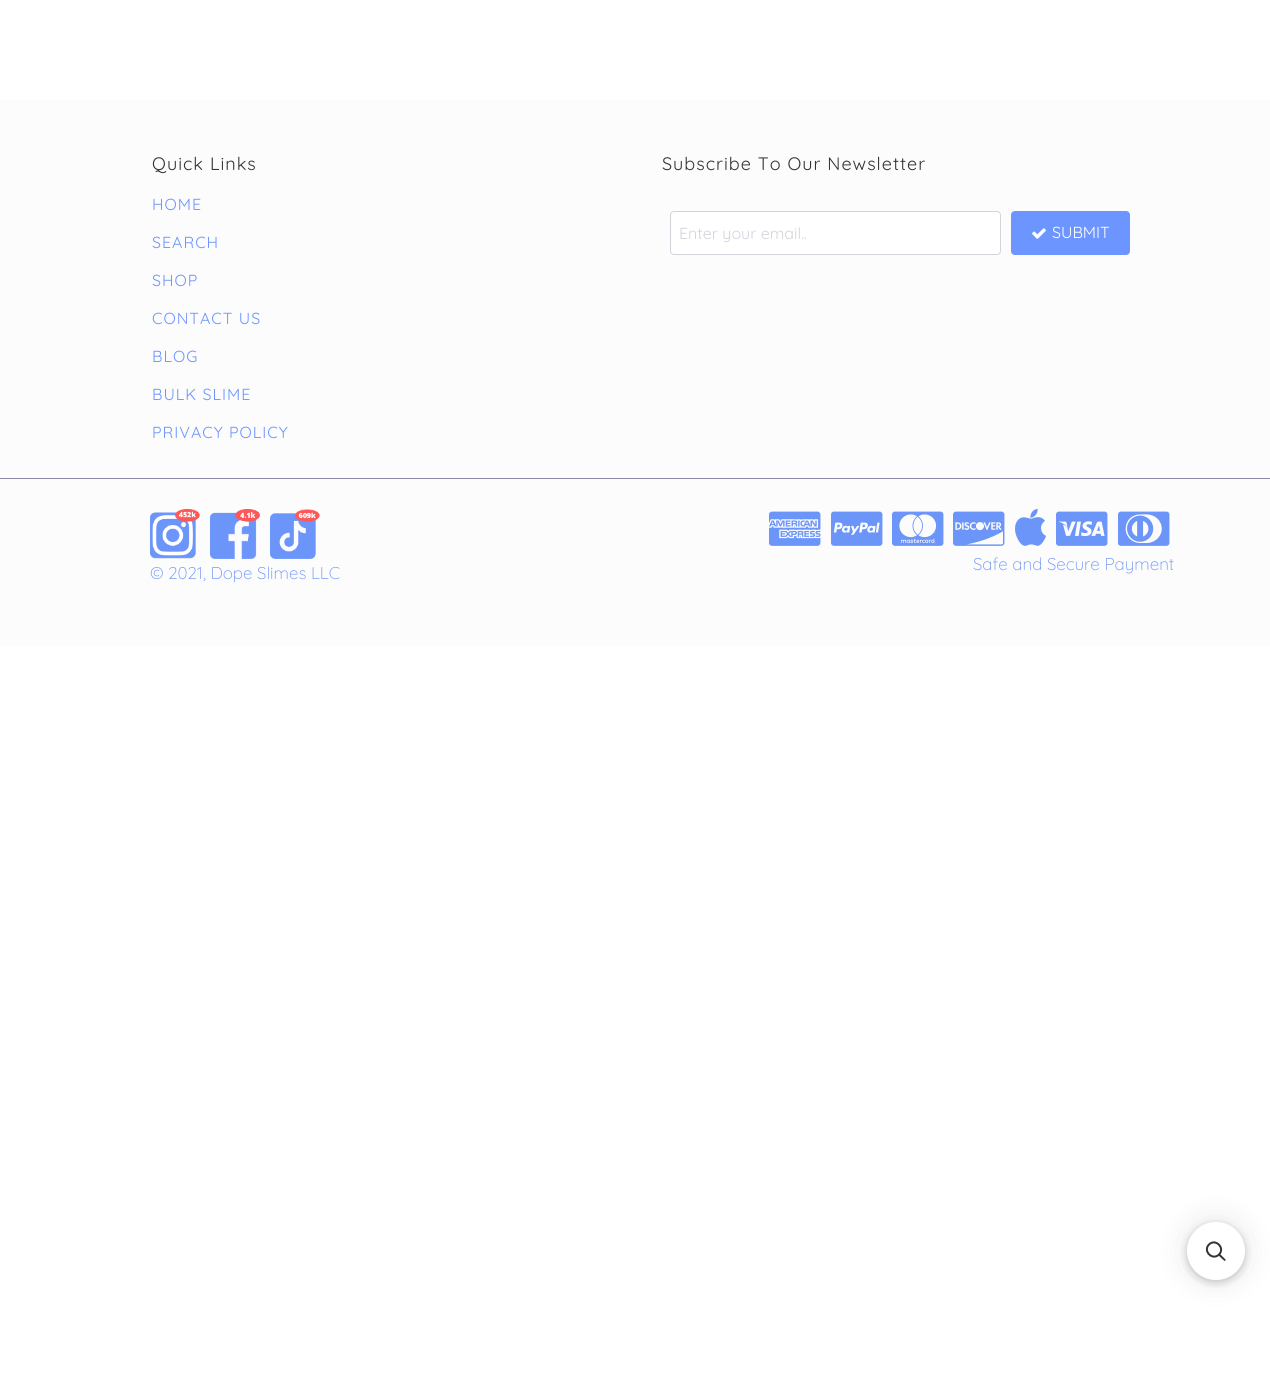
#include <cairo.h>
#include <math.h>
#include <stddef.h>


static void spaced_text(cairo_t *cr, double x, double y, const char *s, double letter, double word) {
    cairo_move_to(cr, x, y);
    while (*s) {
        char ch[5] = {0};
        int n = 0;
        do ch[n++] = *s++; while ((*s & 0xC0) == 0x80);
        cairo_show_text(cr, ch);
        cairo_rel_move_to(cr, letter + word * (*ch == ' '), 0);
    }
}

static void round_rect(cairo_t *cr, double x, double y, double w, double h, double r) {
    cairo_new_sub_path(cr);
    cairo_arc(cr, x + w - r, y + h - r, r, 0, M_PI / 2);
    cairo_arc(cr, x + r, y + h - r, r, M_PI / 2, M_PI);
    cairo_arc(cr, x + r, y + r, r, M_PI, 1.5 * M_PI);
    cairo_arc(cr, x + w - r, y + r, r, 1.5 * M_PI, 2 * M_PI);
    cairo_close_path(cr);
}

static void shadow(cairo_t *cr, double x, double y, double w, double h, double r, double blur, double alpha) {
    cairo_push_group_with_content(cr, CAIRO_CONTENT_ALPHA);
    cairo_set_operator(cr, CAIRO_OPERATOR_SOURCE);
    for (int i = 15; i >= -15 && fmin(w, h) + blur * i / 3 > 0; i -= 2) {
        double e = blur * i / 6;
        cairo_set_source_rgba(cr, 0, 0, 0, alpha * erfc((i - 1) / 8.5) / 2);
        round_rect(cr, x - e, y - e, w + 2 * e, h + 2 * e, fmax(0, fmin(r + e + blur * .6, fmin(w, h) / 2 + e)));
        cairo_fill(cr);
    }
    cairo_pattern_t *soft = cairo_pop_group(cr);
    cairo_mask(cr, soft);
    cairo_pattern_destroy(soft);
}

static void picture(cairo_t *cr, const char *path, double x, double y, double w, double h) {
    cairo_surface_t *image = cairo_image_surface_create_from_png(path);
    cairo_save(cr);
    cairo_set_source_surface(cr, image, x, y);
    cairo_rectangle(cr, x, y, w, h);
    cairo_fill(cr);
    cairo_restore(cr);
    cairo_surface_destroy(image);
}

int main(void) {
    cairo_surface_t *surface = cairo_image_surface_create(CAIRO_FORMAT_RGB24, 1270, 1389);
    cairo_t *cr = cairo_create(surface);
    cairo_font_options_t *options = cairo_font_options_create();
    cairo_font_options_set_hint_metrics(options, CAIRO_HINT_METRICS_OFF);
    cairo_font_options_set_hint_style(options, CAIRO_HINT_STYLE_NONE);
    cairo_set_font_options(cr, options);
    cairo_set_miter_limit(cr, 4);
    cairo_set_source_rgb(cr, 1, 1, 1);
    cairo_paint(cr);
    cairo_set_source_rgb(cr, 0.988, 0.988, 0.988);
    cairo_rectangle(cr, 0, 100, 1270, 546);
    cairo_fill(cr);
    cairo_set_source_rgb(cr, 0.553, 0.533, 0.639);
    cairo_rectangle(cr, 0, 478, 1270, 1);
    cairo_fill(cr);
    cairo_select_font_face(cr, "Quicksand Light", CAIRO_FONT_SLANT_NORMAL, CAIRO_FONT_WEIGHT_NORMAL);
    cairo_set_font_size(cr, 18);
    cairo_set_source_rgb(cr, 0.2, 0.2, 0.2);
    spaced_text(cr, 152, 170, "Quick Links", 1, 0);
    cairo_set_font_size(cr, 16);
    cairo_set_source_rgb(cr, 0.424, 0.584, 1);
    spaced_text(cr, 152, 210, "HOME", 1, 0);
    spaced_text(cr, 152, 248, "SEARCH", 1, 0);
    spaced_text(cr, 152, 286, "SHOP", 1, 0);
    spaced_text(cr, 152, 324, "CONTACT US", 1, 0);
    spaced_text(cr, 152, 362, "BLOG", 1, 0);
    spaced_text(cr, 152, 400, "BULK SLIME", 1, 0);
    spaced_text(cr, 152, 438, "PRIVACY POLICY", 1, 0);
    cairo_set_font_size(cr, 18);
    cairo_set_source_rgb(cr, 0.2, 0.2, 0.2);
    spaced_text(cr, 662, 170, "Subscribe To Our Newsletter", 1, 0);
    cairo_set_source_rgb(cr, 1, 1, 1);
    round_rect(cr, 670.5, 211.5, 330, 43, 3.5);
    cairo_fill_preserve(cr);
    cairo_set_source_rgb(cr, 0.82, 0.835, 0.859);
    cairo_set_line_width(cr, 1);
    cairo_stroke(cr);
    cairo_set_font_size(cr, 16);
    cairo_move_to(cr, 679, 239);
    cairo_show_text(cr, "Enter your email..");
    cairo_set_source_rgb(cr, 0.424, 0.584, 1);
    round_rect(cr, 1011, 211, 119, 44, 4);
    cairo_fill(cr);
    picture(cr, "img1.png", 1032, 228, 14, 11);
    cairo_set_source_rgb(cr, 1, 1, 1);
    cairo_move_to(cr, 1052, 238);
    cairo_show_text(cr, "SUBMIT");
    picture(cr, "img2.png", 150, 509, 50, 50);
    picture(cr, "img3.png", 210, 509, 50, 50);
    picture(cr, "img4.png", 270, 509, 50, 50);
    cairo_select_font_face(cr, "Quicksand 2 Light", CAIRO_FONT_SLANT_NORMAL, CAIRO_FONT_WEIGHT_NORMAL);
    cairo_set_font_size(cr, 17);
    cairo_set_source_rgb(cr, 0.424, 0.584, 0.976);
    cairo_move_to(cr, 150, 579);
    cairo_show_text(cr, "© 2021, Dope Slimes LLC");
    picture(cr, "img5.png", 769, 511, 52, 35);
    picture(cr, "img6.png", 831, 511, 52, 35);
    picture(cr, "img7.png", 892, 511, 52, 35);
    picture(cr, "img8.png", 953, 511, 52, 35);
    picture(cr, "img9.png", 1015, 508, 31, 38);
    picture(cr, "img10.png", 1056, 511, 52, 35);
    picture(cr, "img11.png", 1118, 511, 52, 35);
    cairo_move_to(cr, 973, 570);
    cairo_show_text(cr, "Safe and Secure Payment");
    cairo_set_source_rgb(cr, 0, 0, 0);
    shadow(cr, 1187, 1226, 58, 58, 29, 4, 0.05);
    shadow(cr, 1187, 1224, 58, 58, 29, 4, 0.15);
    shadow(cr, 1187, 1222, 58, 58, 29, 15, 0.1);
    cairo_set_source_rgb(cr, 1, 1, 1);
    cairo_arc(cr, 1216, 1251, 29, 0, 2 * M_PI);
    cairo_fill(cr);
    cairo_new_path(cr);
    cairo_move_to(cr, 1209, 1244.5);
    cairo_curve_to(cr, 1215.5, 1238, 1225.5, 1248, 1219, 1254.5);
    cairo_curve_to(cr, 1212.5, 1261, 1202.5, 1251, 1209, 1244.5);
    cairo_close_path(cr);
    cairo_set_source_rgb(cr, 0.2, 0.2, 0.2);
    cairo_set_line_width(cr, 2);
    cairo_stroke(cr);
    cairo_new_path(cr);
    cairo_move_to(cr, 1218, 1255);
    cairo_line_to(cr, 1219.5, 1253.5);
    cairo_line_to(cr, 1225.5, 1259.5);
    cairo_curve_to(cr, 1226, 1260.5, 1224.5, 1261.5, 1224, 1260.5);
    cairo_close_path(cr);
    cairo_fill(cr);
    cairo_surface_write_to_png(surface, "page.png");
    cairo_font_options_destroy(options);
    cairo_destroy(cr);
    cairo_surface_destroy(surface);
    return 0;
}
